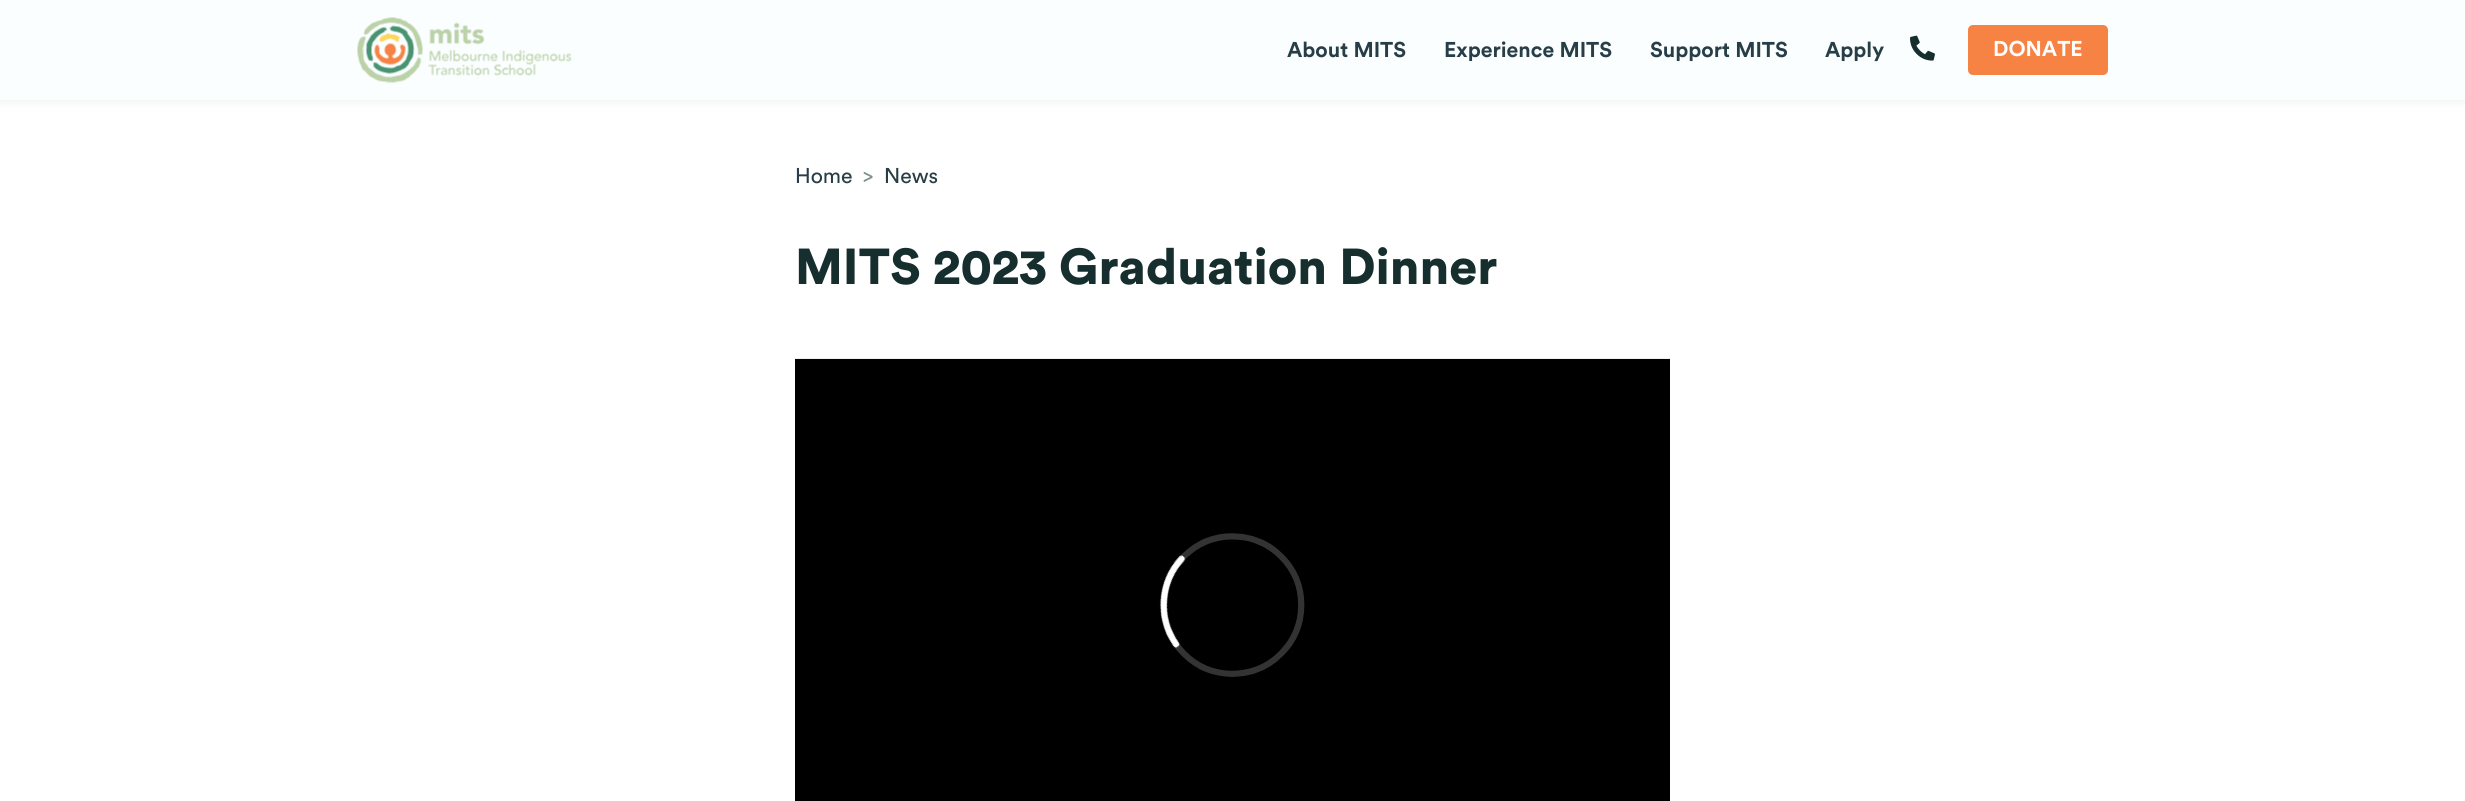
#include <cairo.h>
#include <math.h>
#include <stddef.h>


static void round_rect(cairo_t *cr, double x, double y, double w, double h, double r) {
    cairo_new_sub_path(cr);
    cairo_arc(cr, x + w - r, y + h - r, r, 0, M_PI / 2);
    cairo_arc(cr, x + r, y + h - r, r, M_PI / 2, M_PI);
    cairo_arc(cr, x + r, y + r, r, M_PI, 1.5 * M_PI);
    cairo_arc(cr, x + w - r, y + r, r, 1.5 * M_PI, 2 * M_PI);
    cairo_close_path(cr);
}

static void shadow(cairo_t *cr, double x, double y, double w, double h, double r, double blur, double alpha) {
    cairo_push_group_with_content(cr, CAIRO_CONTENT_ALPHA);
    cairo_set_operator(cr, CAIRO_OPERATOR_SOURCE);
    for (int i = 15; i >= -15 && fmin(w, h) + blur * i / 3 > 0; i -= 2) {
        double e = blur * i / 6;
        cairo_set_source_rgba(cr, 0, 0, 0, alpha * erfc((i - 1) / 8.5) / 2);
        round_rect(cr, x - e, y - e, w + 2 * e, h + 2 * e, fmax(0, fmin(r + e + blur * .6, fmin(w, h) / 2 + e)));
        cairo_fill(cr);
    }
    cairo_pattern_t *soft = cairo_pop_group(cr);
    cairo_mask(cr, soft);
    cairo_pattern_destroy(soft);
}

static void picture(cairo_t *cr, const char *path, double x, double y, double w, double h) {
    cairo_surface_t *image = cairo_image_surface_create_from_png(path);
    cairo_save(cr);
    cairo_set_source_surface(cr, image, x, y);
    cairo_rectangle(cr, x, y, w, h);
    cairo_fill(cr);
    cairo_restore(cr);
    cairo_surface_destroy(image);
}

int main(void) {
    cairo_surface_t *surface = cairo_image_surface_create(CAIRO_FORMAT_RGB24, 2465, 801);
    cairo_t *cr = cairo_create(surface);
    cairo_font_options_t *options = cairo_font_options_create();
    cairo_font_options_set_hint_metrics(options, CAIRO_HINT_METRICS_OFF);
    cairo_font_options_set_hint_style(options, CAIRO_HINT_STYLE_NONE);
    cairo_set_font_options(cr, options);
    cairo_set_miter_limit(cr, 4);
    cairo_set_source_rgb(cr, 1, 1, 1);
    cairo_paint(cr);
    cairo_set_source_rgb(cr, 0.086, 0.18, 0.18);
    shadow(cr, 0, 1, 2465, 100, 0, 5, 0.08);
    cairo_set_source_rgb(cr, 0.984, 0.996, 1);
    cairo_rectangle(cr, 0, 0, 2465, 100);
    cairo_fill(cr);
    picture(cr, "img1.png", 357, 17, 215, 66);
    cairo_select_font_face(cr, "Circular", CAIRO_FONT_SLANT_NORMAL, CAIRO_FONT_WEIGHT_BOLD);
    cairo_set_font_size(cr, 21.25);
    cairo_set_source_rgb(cr, 0.153, 0.243, 0.278);
    cairo_move_to(cr, 1287, 57);
    cairo_show_text(cr, "About MITS");
    cairo_move_to(cr, 1444, 57);
    cairo_show_text(cr, "Experience MITS");
    cairo_move_to(cr, 1650, 57);
    cairo_show_text(cr, "Support MITS");
    cairo_move_to(cr, 1825, 57);
    cairo_show_text(cr, "Apply");
    picture(cr, "img2.png", 1910, 35, 25, 26);
    cairo_set_source_rgb(cr, 0.961, 0.514, 0.267);
    round_rect(cr, 1968, 25, 140, 50, 5);
    cairo_fill(cr);
    cairo_set_source_rgb(cr, 0.984, 0.996, 1);
    cairo_move_to(cr, 1993, 56);
    cairo_show_text(cr, "DONATE");
    cairo_select_font_face(cr, "Circular", CAIRO_FONT_SLANT_NORMAL, CAIRO_FONT_WEIGHT_NORMAL);
    cairo_set_source_rgb(cr, 0.153, 0.243, 0.278);
    cairo_move_to(cr, 795, 183);
    cairo_show_text(cr, "Home");
    cairo_set_source_rgb(cr, 0.498, 0.557, 0.557);
    cairo_move_to(cr, 863, 183);
    cairo_show_text(cr, ">");
    cairo_set_source_rgb(cr, 0.153, 0.243, 0.278);
    cairo_move_to(cr, 884, 183);
    cairo_show_text(cr, "News");
    cairo_select_font_face(cr, "Circular Black", CAIRO_FONT_SLANT_NORMAL, CAIRO_FONT_WEIGHT_NORMAL);
    cairo_set_font_size(cr, 50);
    cairo_set_source_rgb(cr, 0.086, 0.18, 0.18);
    cairo_move_to(cr, 795, 284);
    cairo_show_text(cr, "MITS 2023 Graduation Dinner");
    picture(cr, "img3.png", 795, 358, 875, 443);
    cairo_surface_write_to_png(surface, "page.png");
    cairo_font_options_destroy(options);
    cairo_destroy(cr);
    cairo_surface_destroy(surface);
    return 0;
}
